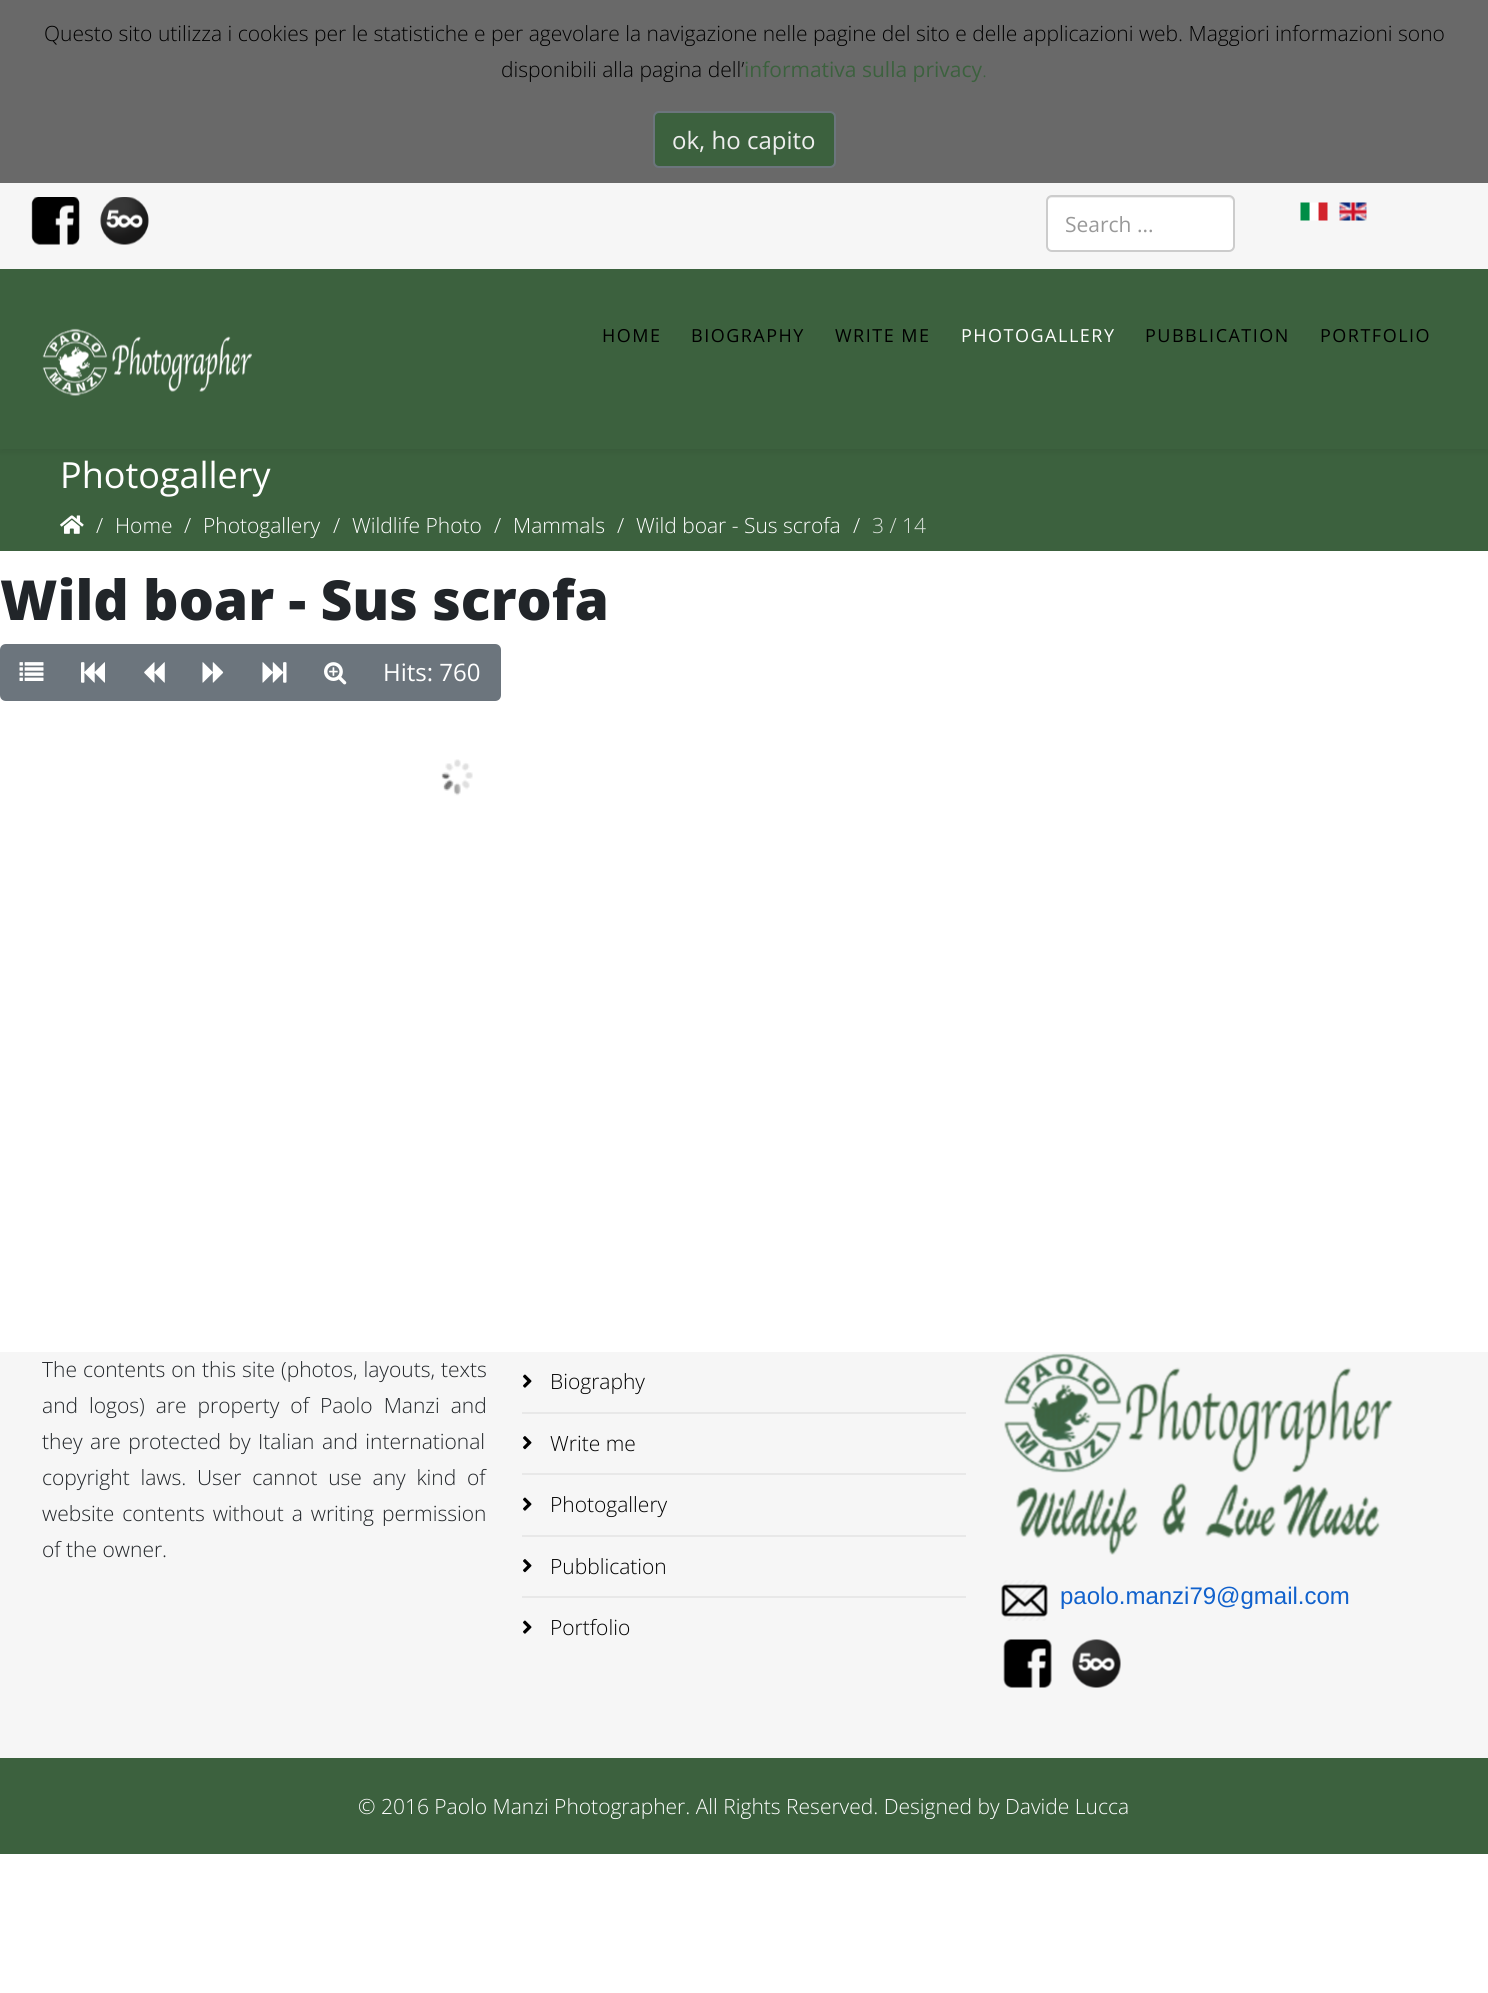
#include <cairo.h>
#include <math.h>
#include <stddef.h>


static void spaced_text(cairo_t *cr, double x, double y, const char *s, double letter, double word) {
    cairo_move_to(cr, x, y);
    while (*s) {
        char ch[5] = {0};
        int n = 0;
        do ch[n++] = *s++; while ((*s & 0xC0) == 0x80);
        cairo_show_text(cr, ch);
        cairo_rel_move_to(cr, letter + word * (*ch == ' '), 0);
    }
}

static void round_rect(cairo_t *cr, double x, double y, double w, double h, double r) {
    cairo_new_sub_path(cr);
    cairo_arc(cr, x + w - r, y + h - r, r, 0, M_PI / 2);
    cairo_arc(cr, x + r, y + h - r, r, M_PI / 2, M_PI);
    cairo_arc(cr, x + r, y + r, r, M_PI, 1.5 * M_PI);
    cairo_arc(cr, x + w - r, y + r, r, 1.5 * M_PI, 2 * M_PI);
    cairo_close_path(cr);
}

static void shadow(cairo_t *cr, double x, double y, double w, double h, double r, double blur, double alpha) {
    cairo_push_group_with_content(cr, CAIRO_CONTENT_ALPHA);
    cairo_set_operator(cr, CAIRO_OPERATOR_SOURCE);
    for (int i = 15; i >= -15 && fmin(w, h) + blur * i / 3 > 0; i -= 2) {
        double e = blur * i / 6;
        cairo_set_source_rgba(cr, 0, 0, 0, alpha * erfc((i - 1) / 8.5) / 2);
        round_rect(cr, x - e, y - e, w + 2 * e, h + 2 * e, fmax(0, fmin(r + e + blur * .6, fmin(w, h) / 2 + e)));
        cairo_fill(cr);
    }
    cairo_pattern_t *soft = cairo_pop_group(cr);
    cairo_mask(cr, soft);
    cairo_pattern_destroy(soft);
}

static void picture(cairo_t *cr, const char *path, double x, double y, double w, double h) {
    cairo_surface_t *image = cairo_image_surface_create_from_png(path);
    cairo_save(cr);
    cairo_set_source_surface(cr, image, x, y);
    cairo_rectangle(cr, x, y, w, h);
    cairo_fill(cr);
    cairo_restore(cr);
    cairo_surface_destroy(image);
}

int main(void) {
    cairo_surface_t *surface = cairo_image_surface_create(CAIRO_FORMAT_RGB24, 1488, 1993);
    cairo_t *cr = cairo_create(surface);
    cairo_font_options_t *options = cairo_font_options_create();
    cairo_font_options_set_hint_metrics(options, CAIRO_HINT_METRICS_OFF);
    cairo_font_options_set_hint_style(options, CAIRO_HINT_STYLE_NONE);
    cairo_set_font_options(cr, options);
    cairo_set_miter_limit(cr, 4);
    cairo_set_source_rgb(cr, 1, 1, 1);
    cairo_paint(cr);
    cairo_set_source_rgb(cr, 0.412, 0.412, 0.412);
    cairo_rectangle(cr, 0, 0, 1488, 183);
    cairo_fill(cr);
    cairo_select_font_face(cr, "Open Sans Light", CAIRO_FONT_SLANT_NORMAL, CAIRO_FONT_WEIGHT_NORMAL);
    cairo_set_font_size(cr, 21);
    cairo_set_source_rgb(cr, 0, 0, 0);
    cairo_move_to(cr, 44, 41);
    cairo_show_text(cr, "Questo sito utilizza i cookies per le statistiche e per agevolare la navigazione nelle pagine del sito e delle applicazioni web. Maggiori informazioni sono");
    cairo_move_to(cr, 501, 77);
    cairo_show_text(cr, "disponibili alla pagina dell’");
    cairo_select_font_face(cr, "Open Sans", CAIRO_FONT_SLANT_NORMAL, CAIRO_FONT_WEIGHT_NORMAL);
    cairo_set_source_rgb(cr, 0.235, 0.38, 0.243);
    cairo_move_to(cr, 744, 77);
    cairo_show_text(cr, "informativa sulla privacy");
    cairo_select_font_face(cr, "Open Sans Light", CAIRO_FONT_SLANT_NORMAL, CAIRO_FONT_WEIGHT_NORMAL);
    cairo_move_to(cr, 982, 77);
    cairo_show_text(cr, ".");
    round_rect(cr, 654, 112, 181, 55, 5);
    cairo_fill_preserve(cr);
    cairo_set_source_rgb(cr, 0.424, 0.459, 0.49);
    cairo_stroke(cr);
    cairo_select_font_face(cr, "Open Sans", CAIRO_FONT_SLANT_NORMAL, CAIRO_FONT_WEIGHT_NORMAL);
    cairo_set_font_size(cr, 24);
    cairo_set_source_rgb(cr, 0.933, 0.933, 0.933);
    cairo_move_to(cr, 672, 149);
    cairo_show_text(cr, "ok, ho capito");
    cairo_set_source_rgb(cr, 0.961, 0.961, 0.961);
    cairo_rectangle(cr, 0, 183, 1488, 86);
    cairo_fill(cr);
    picture(cr, "img1.png", 31, 197, 49, 48);
    picture(cr, "img2.png", 100, 197, 49, 48);
    picture(cr, "img3.png", 1300, 202, 28, 19);
    picture(cr, "img4.png", 1339, 202, 28, 19);
    cairo_set_source_rgb(cr, 1, 1, 1);
    round_rect(cr, 1047, 197, 186, 54, 5);
    cairo_fill(cr);
    cairo_set_source_rgba(cr, 0, 0, 0, 0.07);
    cairo_new_path(cr);
    cairo_move_to(cr, 1052, 198);
    cairo_line_to(cr, 1228, 198);
    cairo_curve_to(cr, 1231, 198, 1233, 200, 1233, 202);
    cairo_curve_to(cr, 1233, 199, 1231, 197, 1228, 197);
    cairo_line_to(cr, 1052, 197);
    cairo_curve_to(cr, 1049, 197, 1047, 199, 1047, 202);
    cairo_curve_to(cr, 1047, 200, 1049, 198, 1052, 198);
    cairo_close_path(cr);
    cairo_fill(cr);
    round_rect(cr, 1047, 196, 187, 55, 5);
    cairo_set_source_rgb(cr, 0.8, 0.8, 0.8);
    cairo_stroke(cr);
    cairo_set_font_size(cr, 21);
    cairo_set_source_rgb(cr, 0.6, 0.6, 0.6);
    cairo_move_to(cr, 1065, 232);
    cairo_show_text(cr, "Search ...");
    cairo_set_source_rgb(cr, 0.235, 0.38, 0.243);
    cairo_rectangle(cr, 0, 449, 1488, 102);
    cairo_fill(cr);
    cairo_set_source_rgb(cr, 0, 0, 0);
    shadow(cr, 0, 273, 1488, 180, 0, 2, 0.05);
    cairo_set_source_rgb(cr, 0.235, 0.38, 0.243);
    cairo_rectangle(cr, 0, 269, 1488, 180);
    cairo_fill(cr);
    picture(cr, "img5.png", 42, 328, 210, 68);
    cairo_set_font_size(cr, 18);
    cairo_set_source_rgb(cr, 0, 0, 0);
    spaced_text(cr, 602, 342, "HOME", 1.5, 0);
    spaced_text(cr, 691, 342, "BIOGRAPHY", 1.5, 0);
    spaced_text(cr, 835, 342, "WRITE ME", 1.5, 0);
    cairo_set_source_rgb(cr, 1, 1, 1);
    spaced_text(cr, 961, 342, "PHOTOGALLERY", 1.5, 0);
    cairo_set_source_rgb(cr, 0, 0, 0);
    spaced_text(cr, 1145, 342, "PUBBLICATION", 1.5, 0);
    spaced_text(cr, 1320, 342, "PORTFOLIO", 1.5, 0);
    cairo_set_font_size(cr, 36);
    cairo_set_source_rgb(cr, 1, 1, 1);
    cairo_move_to(cr, 60, 488);
    cairo_show_text(cr, "Photogallery");
    picture(cr, "img6.png", 60, 515, 24, 19);
    cairo_select_font_face(cr, "Open Sans Light", CAIRO_FONT_SLANT_NORMAL, CAIRO_FONT_WEIGHT_NORMAL);
    cairo_set_font_size(cr, 21);
    cairo_move_to(cr, 96, 533);
    cairo_show_text(cr, "/");
    cairo_move_to(cr, 115, 533);
    cairo_show_text(cr, "Home");
    cairo_move_to(cr, 184, 533);
    cairo_show_text(cr, "/");
    cairo_move_to(cr, 203, 533);
    cairo_show_text(cr, "Photogallery");
    cairo_move_to(cr, 333, 533);
    cairo_show_text(cr, "/");
    cairo_move_to(cr, 352, 533);
    cairo_show_text(cr, "Wildlife Photo");
    cairo_move_to(cr, 494, 533);
    cairo_show_text(cr, "/");
    cairo_move_to(cr, 513, 533);
    cairo_show_text(cr, "Mammals");
    cairo_move_to(cr, 617, 533);
    cairo_show_text(cr, "/");
    cairo_move_to(cr, 636, 533);
    cairo_show_text(cr, "Wild boar - Sus scrofa");
    cairo_move_to(cr, 853, 533);
    cairo_show_text(cr, "/");
    cairo_set_source_rgb(cr, 0.847, 0.875, 0.847);
    cairo_move_to(cr, 872, 533);
    cairo_show_text(cr, "3 / 14");
    cairo_select_font_face(cr, "Open Sans ExtraBold", CAIRO_FONT_SLANT_NORMAL, CAIRO_FONT_WEIGHT_NORMAL);
    cairo_set_font_size(cr, 55.25);
    cairo_set_source_rgb(cr, 0.129, 0.145, 0.161);
    cairo_move_to(cr, 0, 620);
    cairo_show_text(cr, "Wild boar - Sus scrofa");
    cairo_set_source_rgb(cr, 0.424, 0.459, 0.49);
    cairo_new_path(cr);
    cairo_move_to(cr, 6, 645);
    cairo_line_to(cr, 62, 645);
    cairo_line_to(cr, 62, 700);
    cairo_line_to(cr, 6, 700);
    cairo_curve_to(cr, 3, 700, 1, 698, 1, 695);
    cairo_line_to(cr, 1, 650);
    cairo_curve_to(cr, 1, 647, 3, 645, 6, 645);
    cairo_close_path(cr);
    cairo_fill_preserve(cr);
    cairo_stroke(cr);
    picture(cr, "img7.png", 19, 662, 25, 19);
    cairo_rectangle(cr, 63, 644, 302, 57);
    cairo_fill(cr);
    picture(cr, "img8.png", 81, 662, 24, 21);
    picture(cr, "img9.png", 144, 662, 21, 21);
    picture(cr, "img10.png", 202, 662, 22, 21);
    picture(cr, "img11.png", 262, 662, 25, 21);
    picture(cr, "img12.png", 324, 662, 23, 23);
    cairo_new_path(cr);
    cairo_move_to(cr, 366, 645);
    cairo_line_to(cr, 495, 645);
    cairo_curve_to(cr, 498, 645, 500, 647, 500, 650);
    cairo_line_to(cr, 500, 695);
    cairo_curve_to(cr, 500, 698, 498, 700, 495, 700);
    cairo_line_to(cr, 366, 700);
    cairo_close_path(cr);
    cairo_fill_preserve(cr);
    cairo_stroke(cr);
    cairo_select_font_face(cr, "Open Sans", CAIRO_FONT_SLANT_NORMAL, CAIRO_FONT_WEIGHT_NORMAL);
    cairo_set_font_size(cr, 24);
    cairo_set_source_rgb(cr, 1, 1, 1);
    cairo_move_to(cr, 383, 681);
    cairo_show_text(cr, "Hits: 760");
    picture(cr, "img13.png", 441, 759, 32, 37);
    cairo_set_source_rgb(cr, 0.961, 0.961, 0.961);
    cairo_rectangle(cr, 0, 1352, 1488, 406);
    cairo_fill(cr);
    cairo_select_font_face(cr, "Open Sans Light", CAIRO_FONT_SLANT_NORMAL, CAIRO_FONT_WEIGHT_NORMAL);
    cairo_set_font_size(cr, 21);
    cairo_set_source_rgb(cr, 0.129, 0.145, 0.161);
    spaced_text(cr, 42, 1377, "The contents on this site (photos, layouts, texts", 0, 0.5);
    spaced_text(cr, 42, 1413, "and logos) are property of Paolo Manzi and", 0, 5.5);
    spaced_text(cr, 42, 1449, "they are protected by Italian and international", 0, 2);
    spaced_text(cr, 42, 1485, "copyright laws. User cannot use any kind of", 0, 5.25);
    spaced_text(cr, 42, 1521, "website contents without a writing permission", 0, 2.5);
    cairo_move_to(cr, 42, 1557);
    cairo_show_text(cr, "of the owner.");
    cairo_set_source_rgb(cr, 0.91, 0.91, 0.91);
    cairo_rectangle(cr, 522, 1412, 444, 2);
    cairo_fill(cr);
    picture(cr, "img14.png", 523, 1374, 9, 14);
    cairo_set_source_rgb(cr, 0, 0, 0);
    cairo_move_to(cr, 550, 1389);
    cairo_show_text(cr, "Biography");
    cairo_set_source_rgb(cr, 0.91, 0.91, 0.91);
    cairo_rectangle(cr, 522, 1473, 444, 2);
    cairo_fill(cr);
    picture(cr, "img15.png", 523, 1436, 9, 14);
    cairo_set_source_rgb(cr, 0, 0, 0);
    cairo_move_to(cr, 550, 1451);
    cairo_show_text(cr, "Write me");
    cairo_set_source_rgb(cr, 0.91, 0.91, 0.91);
    cairo_rectangle(cr, 522, 1535, 444, 2);
    cairo_fill(cr);
    picture(cr, "img14.png", 523, 1497, 9, 14);
    cairo_set_source_rgb(cr, 0, 0, 0);
    cairo_move_to(cr, 550, 1512);
    cairo_show_text(cr, "Photogallery");
    cairo_set_source_rgb(cr, 0.91, 0.91, 0.91);
    cairo_rectangle(cr, 522, 1596, 444, 2);
    cairo_fill(cr);
    picture(cr, "img15.png", 523, 1559, 9, 14);
    cairo_set_source_rgb(cr, 0, 0, 0);
    cairo_move_to(cr, 550, 1574);
    cairo_show_text(cr, "Pubblication");
    picture(cr, "img14.png", 523, 1620, 9, 14);
    cairo_move_to(cr, 550, 1635);
    cairo_show_text(cr, "Portfolio");
    picture(cr, "img16.png", 1004, 1353, 389, 202);
    picture(cr, "img17.png", 1001, 1580, 47, 41);
    cairo_select_font_face(cr, "Liberation Sans", CAIRO_FONT_SLANT_NORMAL, CAIRO_FONT_WEIGHT_NORMAL);
    cairo_set_font_size(cr, 24);
    cairo_set_source_rgb(cr, 0.063, 0.38, 0.8);
    cairo_move_to(cr, 1060, 1604);
    cairo_show_text(cr, "paolo.manzi79@gmail.com");
    picture(cr, "img18.png", 1003, 1639, 49, 49);
    picture(cr, "img19.png", 1072, 1639, 49, 49);
    cairo_set_source_rgb(cr, 0.235, 0.38, 0.243);
    cairo_rectangle(cr, 0, 1758, 1488, 96);
    cairo_fill(cr);
    cairo_select_font_face(cr, "Open Sans Light", CAIRO_FONT_SLANT_NORMAL, CAIRO_FONT_WEIGHT_NORMAL);
    cairo_set_font_size(cr, 21);
    cairo_set_source_rgb(cr, 1, 1, 1);
    cairo_move_to(cr, 358, 1814);
    cairo_show_text(cr, "© 2016 Paolo Manzi Photographer. All Rights Reserved. Designed by Davide Lucca");
    cairo_surface_write_to_png(surface, "page.png");
    cairo_font_options_destroy(options);
    cairo_destroy(cr);
    cairo_surface_destroy(surface);
    return 0;
}
